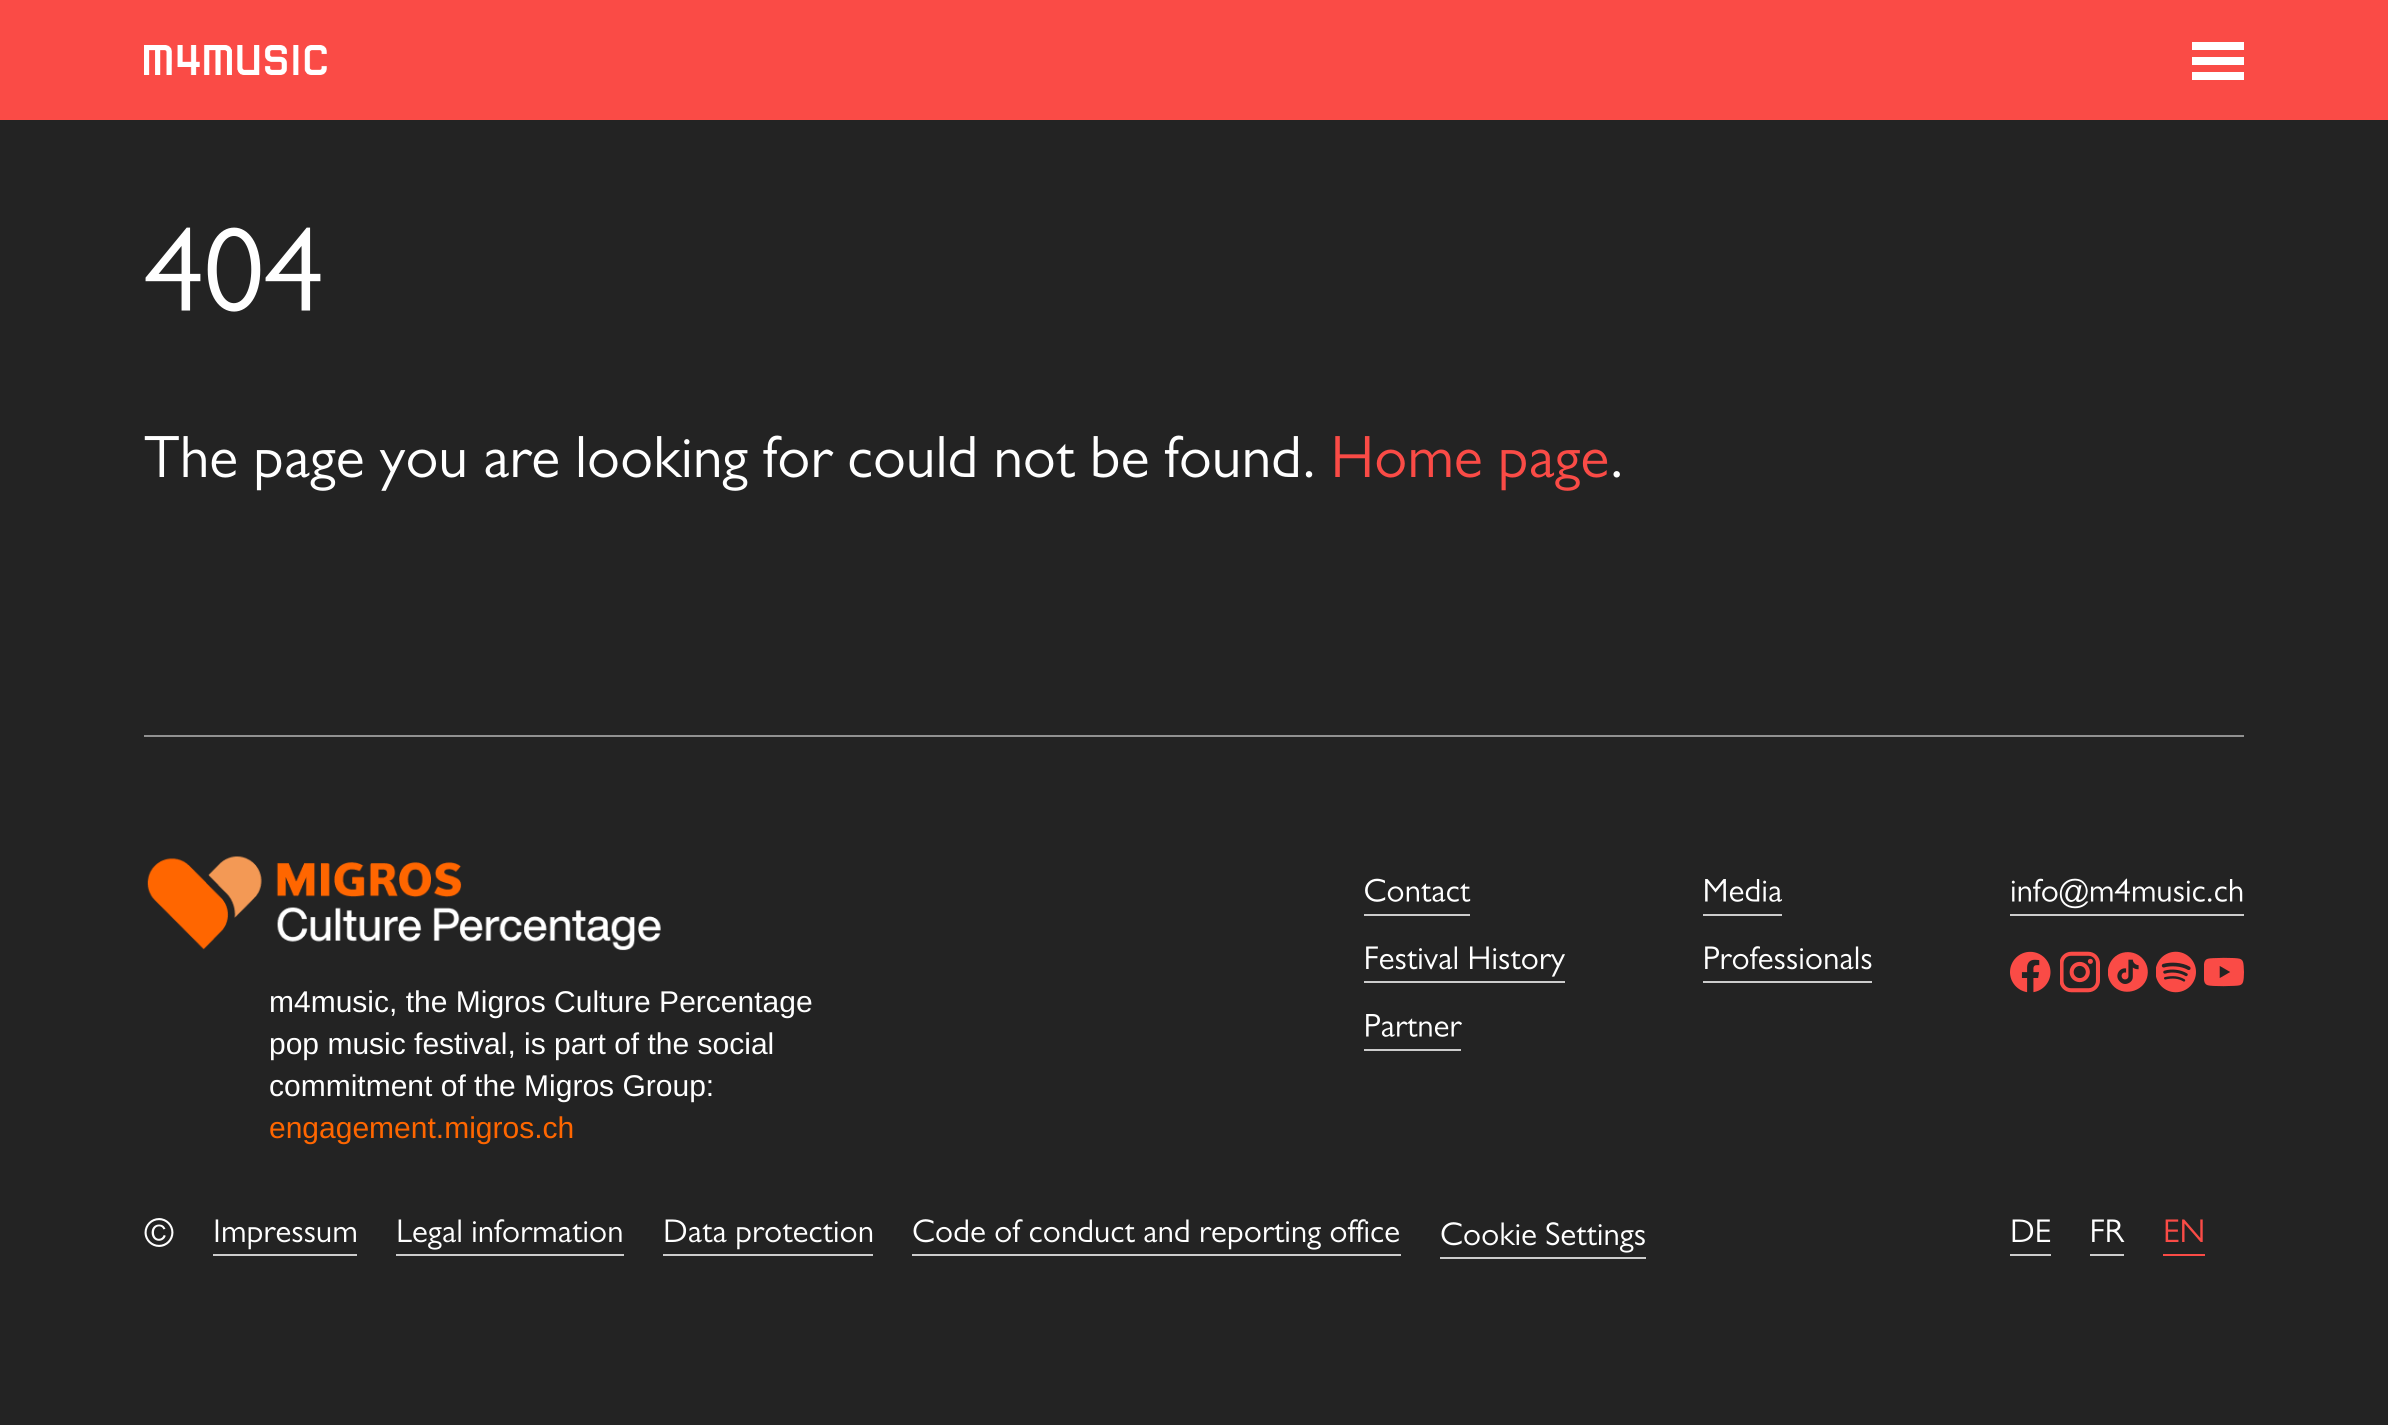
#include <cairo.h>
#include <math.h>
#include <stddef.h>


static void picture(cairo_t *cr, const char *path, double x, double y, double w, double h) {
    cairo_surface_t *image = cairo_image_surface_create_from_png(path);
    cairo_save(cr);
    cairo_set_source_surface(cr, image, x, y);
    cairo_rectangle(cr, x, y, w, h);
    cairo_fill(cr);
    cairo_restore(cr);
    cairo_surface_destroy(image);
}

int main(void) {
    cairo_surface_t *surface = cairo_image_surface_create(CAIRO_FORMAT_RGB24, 2388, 1425);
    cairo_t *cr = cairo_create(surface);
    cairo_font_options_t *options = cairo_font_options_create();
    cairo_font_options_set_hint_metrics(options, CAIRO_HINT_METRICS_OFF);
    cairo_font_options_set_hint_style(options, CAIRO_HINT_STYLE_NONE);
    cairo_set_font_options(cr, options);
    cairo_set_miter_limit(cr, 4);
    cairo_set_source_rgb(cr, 0.137, 0.137, 0.137);
    cairo_paint(cr);
    cairo_set_source_rgb(cr, 0.98, 0.294, 0.275);
    cairo_rectangle(cr, 0, 0, 2388, 120);
    cairo_fill(cr);
    picture(cr, "img1.png", 144, 45, 183, 30);
    cairo_set_source_rgb(cr, 1, 1, 1);
    cairo_rectangle(cr, 2192, 42, 52, 8);
    cairo_fill(cr);
    cairo_rectangle(cr, 2192, 57, 52, 8);
    cairo_fill(cr);
    cairo_rectangle(cr, 2192, 72, 52, 8);
    cairo_fill(cr);
    picture(cr, "img2.png", 145, 227, 176, 85);
    picture(cr, "img3.png", 144, 435, 1169, 56);
    picture(cr, "img4.png", 1335, 436, 273, 55);
    picture(cr, "img5.png", 1613, 471, 7, 7);
    cairo_set_source_rgb(cr, 0.569, 0.569, 0.569);
    cairo_rectangle(cr, 144, 735, 2100, 2);
    cairo_fill(cr);
    picture(cr, "img6.png", 1365, 878, 106, 24);
    cairo_set_source_rgb(cr, 0.8, 0.8, 0.8);
    cairo_rectangle(cr, 1364, 914, 106, 2);
    cairo_fill(cr);
    picture(cr, "img7.png", 1366, 946, 199, 31);
    cairo_rectangle(cr, 1364, 981, 201, 2);
    cairo_fill(cr);
    picture(cr, "img8.png", 1366, 1014, 96, 23);
    cairo_rectangle(cr, 1364, 1049, 97, 2);
    cairo_fill(cr);
    picture(cr, "img9.png", 1705, 879, 77, 23);
    cairo_rectangle(cr, 1703, 914, 79, 2);
    cairo_fill(cr);
    picture(cr, "img10.png", 1705, 946, 167, 24);
    cairo_rectangle(cr, 1703, 981, 169, 2);
    cairo_fill(cr);
    picture(cr, "img11.png", 2011, 878, 232, 31);
    cairo_rectangle(cr, 2010, 914, 234, 2);
    cairo_fill(cr);
    picture(cr, "img12.png", 2010, 951, 41, 42);
    picture(cr, "img13.png", 2060, 951, 40, 42);
    picture(cr, "img14.png", 2108, 952, 40, 40);
    picture(cr, "img15.png", 2156, 951, 40, 42);
    picture(cr, "img16.png", 2204, 957, 40, 30);
    picture(cr, "img17.png", 147, 856, 514, 95);
    cairo_select_font_face(cr, "Liberation Sans", CAIRO_FONT_SLANT_NORMAL, CAIRO_FONT_WEIGHT_NORMAL);
    cairo_set_font_size(cr, 30);
    cairo_set_source_rgb(cr, 1, 1, 1);
    cairo_move_to(cr, 269, 1012);
    cairo_show_text(cr, "m4music, the Migros Culture Percentage");
    cairo_move_to(cr, 269, 1054);
    cairo_show_text(cr, "pop music festival, is part of the social");
    cairo_move_to(cr, 269, 1096);
    cairo_show_text(cr, "commitment of the Migros Group:");
    cairo_set_source_rgb(cr, 1, 0.4, 0);
    cairo_move_to(cr, 269, 1138);
    cairo_show_text(cr, "engagement.migros.ch");
    picture(cr, "img18.png", 144, 1218, 30, 29);
    picture(cr, "img19.png", 215, 1219, 141, 31);
    cairo_set_source_rgb(cr, 0.8, 0.8, 0.8);
    cairo_rectangle(cr, 213, 1254, 144, 2);
    cairo_fill(cr);
    picture(cr, "img20.png", 398, 1219, 224, 31);
    cairo_rectangle(cr, 396, 1254, 228, 2);
    cairo_fill(cr);
    picture(cr, "img21.png", 665, 1219, 208, 31);
    cairo_rectangle(cr, 663, 1254, 210, 2);
    cairo_fill(cr);
    picture(cr, "img22.png", 913, 1219, 486, 31);
    cairo_rectangle(cr, 912, 1254, 489, 2);
    cairo_fill(cr);
    picture(cr, "img23.png", 1441, 1222, 204, 31);
    cairo_rectangle(cr, 1440, 1257, 206, 2);
    cairo_fill(cr);
    picture(cr, "img24.png", 2012, 1219, 39, 23);
    cairo_rectangle(cr, 2010, 1254, 41, 2);
    cairo_fill(cr);
    picture(cr, "img25.png", 2092, 1219, 33, 23);
    cairo_rectangle(cr, 2090, 1254, 34, 2);
    cairo_fill(cr);
    picture(cr, "img26.png", 2165, 1219, 38, 23);
    cairo_set_source_rgb(cr, 0.98, 0.294, 0.275);
    cairo_rectangle(cr, 2163, 1254, 42, 2);
    cairo_fill(cr);
    cairo_surface_write_to_png(surface, "page.png");
    cairo_font_options_destroy(options);
    cairo_destroy(cr);
    cairo_surface_destroy(surface);
    return 0;
}
